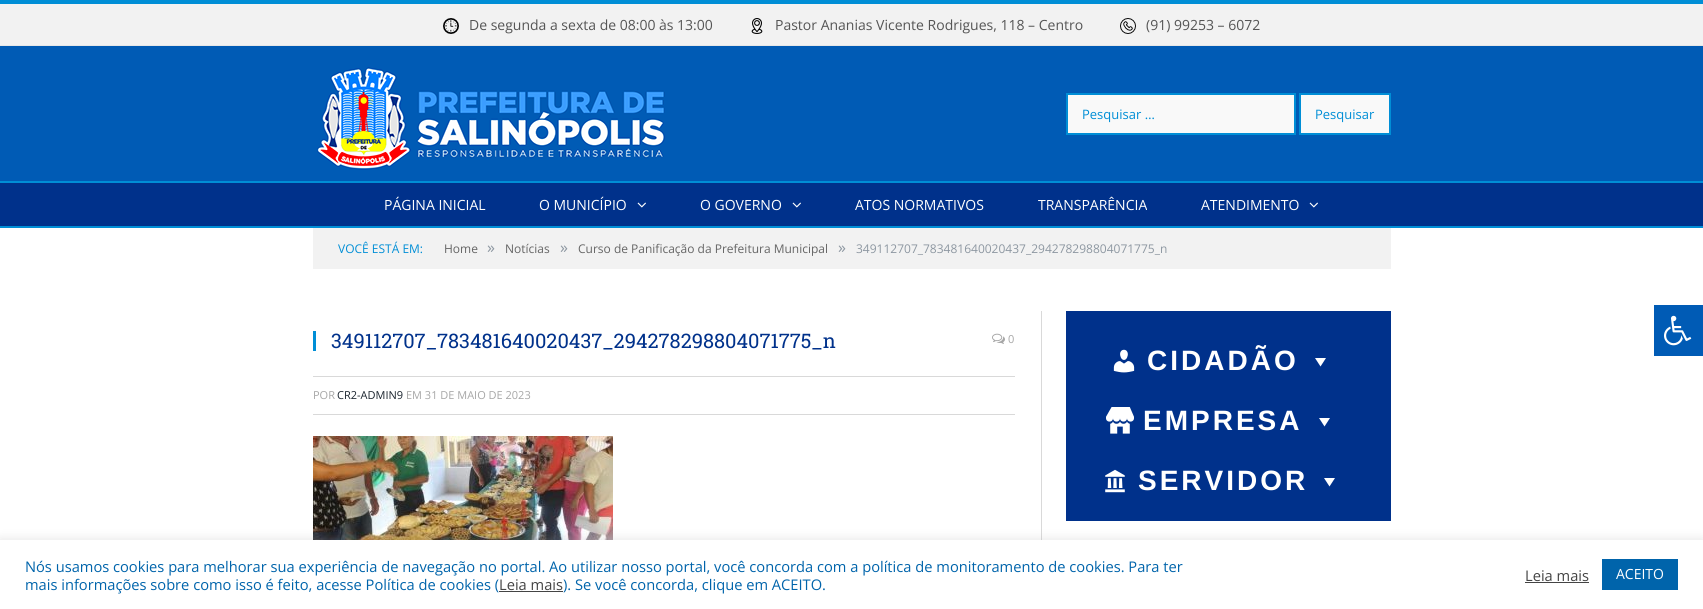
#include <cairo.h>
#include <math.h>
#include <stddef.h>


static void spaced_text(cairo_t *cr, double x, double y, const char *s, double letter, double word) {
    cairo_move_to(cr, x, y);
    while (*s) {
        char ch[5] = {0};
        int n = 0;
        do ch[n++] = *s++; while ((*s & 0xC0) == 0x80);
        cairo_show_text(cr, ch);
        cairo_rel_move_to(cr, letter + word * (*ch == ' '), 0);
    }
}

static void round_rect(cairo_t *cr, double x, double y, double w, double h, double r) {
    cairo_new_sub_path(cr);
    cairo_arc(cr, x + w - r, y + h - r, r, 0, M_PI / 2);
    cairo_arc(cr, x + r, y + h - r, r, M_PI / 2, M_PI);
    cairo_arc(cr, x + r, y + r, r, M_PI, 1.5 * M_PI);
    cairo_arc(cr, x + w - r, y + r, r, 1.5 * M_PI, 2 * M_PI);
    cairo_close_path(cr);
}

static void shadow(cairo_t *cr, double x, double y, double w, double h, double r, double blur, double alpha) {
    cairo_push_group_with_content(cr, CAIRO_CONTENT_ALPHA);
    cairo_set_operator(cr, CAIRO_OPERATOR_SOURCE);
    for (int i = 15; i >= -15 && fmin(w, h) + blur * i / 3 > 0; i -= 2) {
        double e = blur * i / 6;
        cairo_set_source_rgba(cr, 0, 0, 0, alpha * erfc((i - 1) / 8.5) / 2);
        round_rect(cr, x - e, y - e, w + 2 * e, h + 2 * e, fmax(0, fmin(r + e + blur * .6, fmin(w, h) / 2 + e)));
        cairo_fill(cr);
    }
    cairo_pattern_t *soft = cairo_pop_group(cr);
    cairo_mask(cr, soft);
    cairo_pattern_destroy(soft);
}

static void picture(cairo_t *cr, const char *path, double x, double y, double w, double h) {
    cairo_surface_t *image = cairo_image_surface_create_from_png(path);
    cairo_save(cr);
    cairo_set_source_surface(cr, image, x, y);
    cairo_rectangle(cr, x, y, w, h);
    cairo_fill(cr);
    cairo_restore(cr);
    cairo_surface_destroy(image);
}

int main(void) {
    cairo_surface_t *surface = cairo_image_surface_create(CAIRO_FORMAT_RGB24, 1703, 609);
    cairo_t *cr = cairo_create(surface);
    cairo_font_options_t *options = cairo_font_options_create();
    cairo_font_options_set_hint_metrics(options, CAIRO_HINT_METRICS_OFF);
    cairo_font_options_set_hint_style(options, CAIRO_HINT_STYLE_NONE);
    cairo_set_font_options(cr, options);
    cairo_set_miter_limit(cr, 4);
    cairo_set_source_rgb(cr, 1, 1, 1);
    cairo_paint(cr);
    cairo_set_source_rgb(cr, 0.949, 0.949, 0.949);
    cairo_rectangle(cr, 0, 4, 1703, 41);
    cairo_fill(cr);
    cairo_set_source_rgb(cr, 0, 0.557, 0.839);
    cairo_rectangle(cr, 0, 0, 1703, 4);
    cairo_fill(cr);
    cairo_set_source_rgb(cr, 0.906, 0.906, 0.906);
    cairo_rectangle(cr, 0, 45, 1703, 1);
    cairo_fill(cr);
    picture(cr, "img1.png", 443, 18, 16, 16);
    cairo_select_font_face(cr, "Open Sans", CAIRO_FONT_SLANT_NORMAL, CAIRO_FONT_WEIGHT_NORMAL);
    cairo_set_font_size(cr, 14);
    cairo_set_source_rgb(cr, 0.333, 0.333, 0.333);
    cairo_move_to(cr, 469, 30);
    cairo_show_text(cr, "De segunda a sexta de 08:00 às 13:00");
    picture(cr, "img2.png", 751, 18, 12, 16);
    cairo_move_to(cr, 775, 30);
    cairo_show_text(cr, "Pastor Ananias Vicente Rodrigues, 118 – Centro");
    picture(cr, "img3.png", 1120, 18, 16, 16);
    cairo_move_to(cr, 1146, 30);
    cairo_show_text(cr, "(91) 99253 – 6072");
    cairo_set_source_rgb(cr, 0, 0.357, 0.71);
    cairo_rectangle(cr, 0, 46, 1703, 135);
    cairo_fill(cr);
    picture(cr, "img4.png", 317, 67, 348, 103);
    cairo_set_source_rgb(cr, 0.976, 0.976, 0.976);
    cairo_rectangle(cr, 1067, 94, 228, 40);
    cairo_fill_preserve(cr);
    cairo_set_source_rgb(cr, 0, 0.557, 0.839);
    cairo_stroke(cr);
    cairo_set_font_size(cr, 13);
    cairo_move_to(cr, 1082, 119);
    cairo_show_text(cr, "Pesquisar …");
    cairo_set_source_rgb(cr, 0.976, 0.976, 0.976);
    cairo_rectangle(cr, 1300, 94, 90, 40);
    cairo_fill_preserve(cr);
    cairo_set_source_rgb(cr, 0, 0.557, 0.839);
    cairo_stroke(cr);
    cairo_move_to(cr, 1315, 119);
    cairo_show_text(cr, "Pesquisar");
    cairo_set_source_rgb(cr, 0, 0.192, 0.545);
    cairo_rectangle(cr, 0, 183, 1703, 43);
    cairo_fill(cr);
    cairo_set_source_rgb(cr, 0, 0.557, 0.839);
    cairo_rectangle(cr, 0, 181, 1703, 2);
    cairo_fill(cr);
    cairo_rectangle(cr, 0, 226, 1703, 2);
    cairo_fill(cr);
    cairo_set_font_size(cr, 14);
    cairo_set_source_rgb(cr, 1, 1, 1);
    cairo_move_to(cr, 384, 210);
    cairo_show_text(cr, "PÁGINA INICIAL");
    cairo_move_to(cr, 539, 210);
    cairo_show_text(cr, "O MUNICÍPIO");
    picture(cr, "img5.png", 637, 202, 9, 6);
    cairo_move_to(cr, 700, 210);
    cairo_show_text(cr, "O GOVERNO");
    picture(cr, "img5.png", 792, 202, 9, 6);
    cairo_move_to(cr, 855, 210);
    cairo_show_text(cr, "ATOS NORMATIVOS");
    cairo_move_to(cr, 1038, 210);
    cairo_show_text(cr, "TRANSPARÊNCIA");
    cairo_move_to(cr, 1201, 210);
    cairo_show_text(cr, "ATENDIMENTO");
    picture(cr, "img5.png", 1309, 202, 9, 6);
    cairo_set_source_rgb(cr, 0.949, 0.949, 0.949);
    cairo_rectangle(cr, 313, 228, 1078, 41);
    cairo_fill(cr);
    cairo_set_font_size(cr, 12);
    cairo_set_source_rgb(cr, 0, 0.557, 0.839);
    cairo_move_to(cr, 338, 253);
    cairo_show_text(cr, "VOCÊ ESTÁ EM:");
    cairo_set_source_rgb(cr, 0.396, 0.396, 0.396);
    cairo_move_to(cr, 444, 253);
    cairo_show_text(cr, "Home");
    cairo_set_font_size(cr, 16);
    cairo_set_source_rgb(cr, 0.553, 0.592, 0.631);
    cairo_move_to(cr, 487, 253);
    cairo_show_text(cr, "»");
    cairo_set_font_size(cr, 12);
    cairo_set_source_rgb(cr, 0.396, 0.396, 0.396);
    cairo_move_to(cr, 505, 253);
    cairo_show_text(cr, "Notícias");
    cairo_set_font_size(cr, 16);
    cairo_set_source_rgb(cr, 0.553, 0.592, 0.631);
    cairo_move_to(cr, 560, 253);
    cairo_show_text(cr, "»");
    cairo_set_font_size(cr, 12);
    cairo_set_source_rgb(cr, 0.396, 0.396, 0.396);
    cairo_move_to(cr, 578, 253);
    cairo_show_text(cr, "Curso de Panificação da Prefeitura Municipal");
    cairo_set_font_size(cr, 16);
    cairo_set_source_rgb(cr, 0.553, 0.592, 0.631);
    cairo_move_to(cr, 838, 253);
    cairo_show_text(cr, "»");
    cairo_set_font_size(cr, 12);
    cairo_move_to(cr, 856, 253);
    cairo_show_text(cr, "349112707_783481640020437_294278298804071775_n");
    cairo_set_source_rgb(cr, 0, 0.557, 0.839);
    cairo_rectangle(cr, 313, 331, 3, 20);
    cairo_fill(cr);
    cairo_select_font_face(cr, "Roboto Slab", CAIRO_FONT_SLANT_NORMAL, CAIRO_FONT_WEIGHT_NORMAL);
    cairo_set_font_size(cr, 20);
    cairo_set_source_rgb(cr, 0, 0.192, 0.545);
    cairo_move_to(cr, 331, 348);
    cairo_show_text(cr, "349112707_783481640020437_294278298804071775_n");
    picture(cr, "img6.png", 992, 333, 13, 11);
    cairo_select_font_face(cr, "Open Sans", CAIRO_FONT_SLANT_NORMAL, CAIRO_FONT_WEIGHT_NORMAL);
    cairo_set_font_size(cr, 11);
    cairo_set_source_rgb(cr, 0.651, 0.651, 0.651);
    cairo_move_to(cr, 1008, 343);
    cairo_show_text(cr, "0");
    cairo_set_source_rgb(cr, 0.851, 0.851, 0.851);
    cairo_rectangle(cr, 313, 376, 702, 1);
    cairo_fill(cr);
    cairo_rectangle(cr, 313, 414, 702, 1);
    cairo_fill(cr);
    cairo_set_source_rgb(cr, 0.651, 0.651, 0.651);
    cairo_move_to(cr, 313, 399);
    cairo_show_text(cr, "POR");
    cairo_set_source_rgb(cr, 0.098, 0.137, 0.176);
    cairo_move_to(cr, 337, 399);
    cairo_show_text(cr, "CR2-ADMIN9");
    cairo_set_source_rgb(cr, 0.651, 0.651, 0.651);
    cairo_move_to(cr, 406, 399);
    cairo_show_text(cr, "EM 31 DE MAIO DE 2023");
    picture(cr, "img7.png", 313, 436, 300, 104);
    cairo_set_source_rgb(cr, 0.851, 0.851, 0.851);
    cairo_rectangle(cr, 1041, 311, 1, 229);
    cairo_fill(cr);
    cairo_set_source_rgb(cr, 0, 0.192, 0.545);
    cairo_rectangle(cr, 1066, 311, 325, 210);
    cairo_fill(cr);
    picture(cr, "img8.png", 1113, 349, 22, 24);
    cairo_select_font_face(cr, "Liberation Sans", CAIRO_FONT_SLANT_NORMAL, CAIRO_FONT_WEIGHT_BOLD);
    cairo_set_font_size(cr, 28);
    cairo_set_source_rgb(cr, 1, 1, 1);
    spaced_text(cr, 1147, 370, "CIDADÃO", 3, 0);
    cairo_new_path(cr);
    cairo_move_to(cr, 1326, 358);
    cairo_line_to(cr, 1320.5, 366.5);
    cairo_line_to(cr, 1315, 358);
    cairo_close_path(cr);
    cairo_fill(cr);
    picture(cr, "img9.png", 1106, 407, 28, 27);
    spaced_text(cr, 1143, 430, "EMPRESA", 3, 0);
    cairo_new_path(cr);
    cairo_move_to(cr, 1330, 418);
    cairo_line_to(cr, 1324.5, 426.5);
    cairo_line_to(cr, 1319, 418);
    cairo_close_path(cr);
    cairo_fill(cr);
    picture(cr, "img10.png", 1105, 469, 20, 24);
    spaced_text(cr, 1138, 490, "SERVIDOR", 3, 0);
    cairo_new_path(cr);
    cairo_move_to(cr, 1335, 478);
    cairo_line_to(cr, 1329.5, 486.5);
    cairo_line_to(cr, 1324, 478);
    cairo_close_path(cr);
    cairo_fill(cr);
    cairo_set_source_rgb(cr, 0, 0.357, 0.71);
    cairo_rectangle(cr, 1654, 305, 49, 51);
    cairo_fill(cr);
    picture(cr, "img11.png", 1664, 315, 28, 31);
    cairo_set_source_rgb(cr, 0.675, 0.671, 0.671);
    shadow(cr, 0, 539, 1703, 69, 0, 5, 0.3);
    cairo_set_source_rgb(cr, 1, 1, 1);
    cairo_rectangle(cr, 0, 540, 1703, 69);
    cairo_fill(cr);
    cairo_select_font_face(cr, "Open Sans", CAIRO_FONT_SLANT_NORMAL, CAIRO_FONT_WEIGHT_NORMAL);
    cairo_set_font_size(cr, 14.67);
    cairo_set_source_rgb(cr, 0, 0.392, 0.671);
    cairo_move_to(cr, 25, 572);
    cairo_show_text(cr, "Nós usamos cookies para melhorar sua experiência de navegação no portal. Ao utilizar nosso portal, você concorda com a política de monitoramento de cookies. Para ter");
    cairo_move_to(cr, 25, 590);
    cairo_show_text(cr, "mais informações sobre como isso é feito, acesse Política de cookies (");
    cairo_set_source_rgb(cr, 0.267, 0.267, 0.267);
    cairo_move_to(cr, 499, 590);
    cairo_show_text(cr, "Leia mais");
    cairo_rectangle(cr, 499, 591, 64, 1);
    cairo_fill(cr);
    cairo_set_source_rgb(cr, 0, 0.392, 0.671);
    cairo_move_to(cr, 563, 590);
    cairo_show_text(cr, "). Se você concorda, clique em ACEITO.");
    cairo_set_source_rgb(cr, 0.267, 0.267, 0.267);
    cairo_move_to(cr, 1525, 581);
    cairo_show_text(cr, "Leia mais");
    cairo_rectangle(cr, 1525, 582, 64, 1);
    cairo_fill(cr);
    cairo_set_source_rgb(cr, 0, 0.392, 0.671);
    cairo_rectangle(cr, 1602, 559, 76, 31);
    cairo_fill(cr);
    cairo_set_font_size(cr, 14);
    cairo_set_source_rgb(cr, 1, 1, 1);
    cairo_move_to(cr, 1616, 579);
    cairo_show_text(cr, "ACEITO");
    cairo_surface_write_to_png(surface, "page.png");
    cairo_font_options_destroy(options);
    cairo_destroy(cr);
    cairo_surface_destroy(surface);
    return 0;
}
